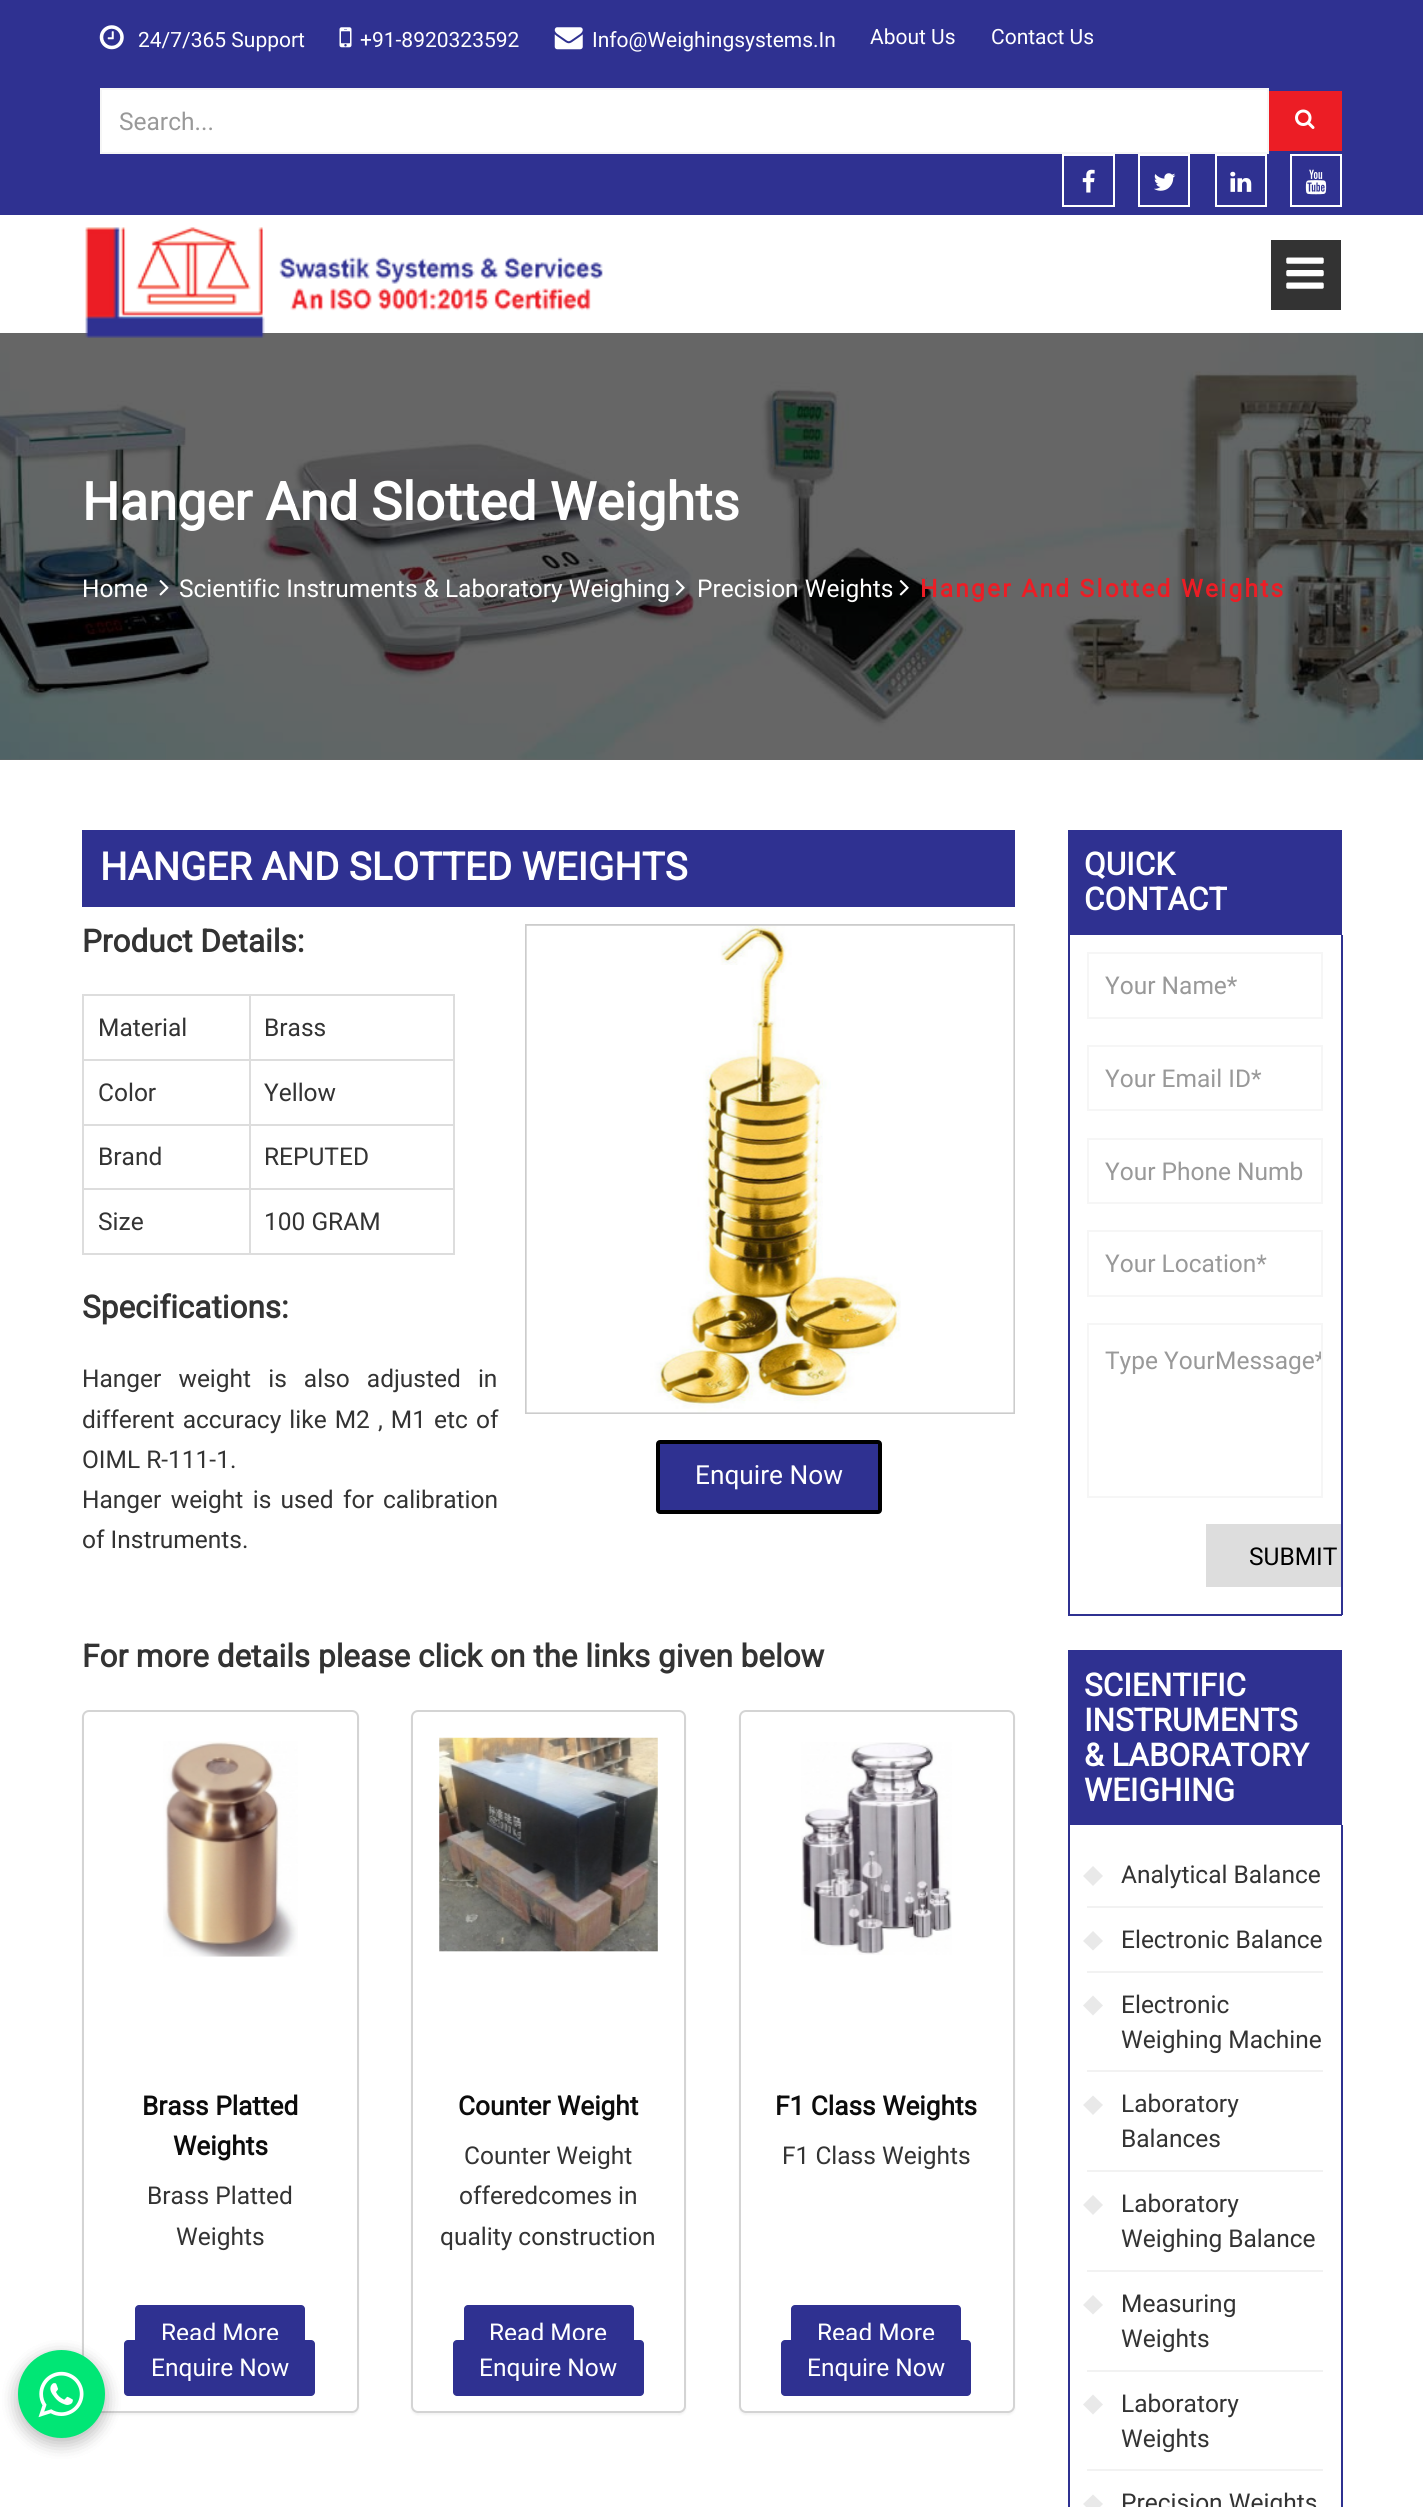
#include <cairo.h>
#include <math.h>
#include <stddef.h>


static void spaced_text(cairo_t *cr, double x, double y, const char *s, double letter, double word) {
    cairo_move_to(cr, x, y);
    while (*s) {
        char ch[5] = {0};
        int n = 0;
        do ch[n++] = *s++; while ((*s & 0xC0) == 0x80);
        cairo_show_text(cr, ch);
        cairo_rel_move_to(cr, letter + word * (*ch == ' '), 0);
    }
}

static void round_rect(cairo_t *cr, double x, double y, double w, double h, double r) {
    cairo_new_sub_path(cr);
    cairo_arc(cr, x + w - r, y + h - r, r, 0, M_PI / 2);
    cairo_arc(cr, x + r, y + h - r, r, M_PI / 2, M_PI);
    cairo_arc(cr, x + r, y + r, r, M_PI, 1.5 * M_PI);
    cairo_arc(cr, x + w - r, y + r, r, 1.5 * M_PI, 2 * M_PI);
    cairo_close_path(cr);
}

static void shadow(cairo_t *cr, double x, double y, double w, double h, double r, double blur, double alpha) {
    cairo_push_group_with_content(cr, CAIRO_CONTENT_ALPHA);
    cairo_set_operator(cr, CAIRO_OPERATOR_SOURCE);
    for (int i = 15; i >= -15 && fmin(w, h) + blur * i / 3 > 0; i -= 2) {
        double e = blur * i / 6;
        cairo_set_source_rgba(cr, 0, 0, 0, alpha * erfc((i - 1) / 8.5) / 2);
        round_rect(cr, x - e, y - e, w + 2 * e, h + 2 * e, fmax(0, fmin(r + e + blur * .6, fmin(w, h) / 2 + e)));
        cairo_fill(cr);
    }
    cairo_pattern_t *soft = cairo_pop_group(cr);
    cairo_mask(cr, soft);
    cairo_pattern_destroy(soft);
}

static void picture(cairo_t *cr, const char *path, double x, double y, double w, double h) {
    cairo_surface_t *image = cairo_image_surface_create_from_png(path);
    cairo_save(cr);
    cairo_set_source_surface(cr, image, x, y);
    cairo_rectangle(cr, x, y, w, h);
    cairo_fill(cr);
    cairo_restore(cr);
    cairo_surface_destroy(image);
}

int main(void) {
    cairo_surface_t *surface = cairo_image_surface_create(CAIRO_FORMAT_RGB24, 1423, 2507);
    cairo_t *cr = cairo_create(surface);
    cairo_font_options_t *options = cairo_font_options_create();
    cairo_font_options_set_hint_metrics(options, CAIRO_HINT_METRICS_OFF);
    cairo_font_options_set_hint_style(options, CAIRO_HINT_STYLE_NONE);
    cairo_set_font_options(cr, options);
    cairo_set_miter_limit(cr, 4);
    cairo_set_source_rgb(cr, 1, 1, 1);
    cairo_paint(cr);
    cairo_set_source_rgb(cr, 0.4, 0.4, 0.4);
    cairo_rectangle(cr, 0, 759, 1423, 1);
    cairo_fill(cr);
    cairo_set_source_rgb(cr, 0.184, 0.192, 0.569);
    cairo_rectangle(cr, 0, 0, 1423, 215);
    cairo_fill(cr);
    picture(cr, "img1.png", 99, 25, 25, 25);
    cairo_select_font_face(cr, "Roboto", CAIRO_FONT_SLANT_NORMAL, CAIRO_FONT_WEIGHT_NORMAL);
    cairo_set_font_size(cr, 21);
    cairo_set_source_rgb(cr, 1, 1, 1);
    cairo_move_to(cr, 138, 47);
    cairo_show_text(cr, "24/7/365 Support");
    picture(cr, "img2.png", 339, 27, 13, 21);
    cairo_move_to(cr, 360, 47);
    cairo_show_text(cr, "+91-8920323592");
    picture(cr, "img3.png", 554, 27, 29, 23);
    cairo_move_to(cr, 592, 47);
    cairo_show_text(cr, "Info@Weighingsystems.In");
    cairo_move_to(cr, 870, 44);
    cairo_show_text(cr, "About Us");
    cairo_move_to(cr, 991, 44);
    cairo_show_text(cr, "Contact Us");
    cairo_rectangle(cr, 101, 89, 1167, 64);
    cairo_fill_preserve(cr);
    cairo_set_source_rgb(cr, 0.961, 0.961, 0.961);
    cairo_stroke(cr);
    cairo_set_font_size(cr, 24.5);
    cairo_set_source_rgb(cr, 0.6, 0.6, 0.6);
    cairo_move_to(cr, 119, 130);
    cairo_show_text(cr, "Search...");
    cairo_set_source_rgb(cr, 0.925, 0.114, 0.145);
    cairo_rectangle(cr, 1269, 91, 73, 60);
    cairo_fill(cr);
    picture(cr, "img4.png", 1295, 109, 20, 20);
    cairo_rectangle(cr, 1063, 155, 51, 51);
    cairo_set_source_rgb(cr, 1, 1, 1);
    cairo_stroke(cr);
    picture(cr, "img5.png", 1082, 169, 13, 24);
    cairo_rectangle(cr, 1139, 155, 50, 51);
    cairo_stroke(cr);
    picture(cr, "img6.png", 1154, 173, 22, 18);
    cairo_rectangle(cr, 1216, 155, 50, 51);
    cairo_stroke(cr);
    picture(cr, "img7.png", 1230, 171, 22, 21);
    cairo_rectangle(cr, 1291, 155, 50, 51);
    cairo_stroke(cr);
    picture(cr, "img8.png", 1305, 169, 22, 26);
    picture(cr, "img11.png", 0, 332, 1423, 428);
    picture(cr, "img9.png", 85, 227, 518, 111);
    cairo_set_source_rgb(cr, 0.2, 0.2, 0.2);
    cairo_rectangle(cr, 1271, 240, 70, 70);
    cairo_fill(cr);
    picture(cr, "img10.png", 1286, 257, 38, 32);
    cairo_select_font_face(cr, "Roboto", CAIRO_FONT_SLANT_NORMAL, CAIRO_FONT_WEIGHT_BOLD);
    cairo_set_font_size(cr, 52.5);
    cairo_set_source_rgb(cr, 1, 1, 1);
    cairo_move_to(cr, 82, 520);
    cairo_show_text(cr, "Hanger And Slotted Weights");
    cairo_select_font_face(cr, "Roboto", CAIRO_FONT_SLANT_NORMAL, CAIRO_FONT_WEIGHT_NORMAL);
    cairo_set_font_size(cr, 24.5);
    cairo_move_to(cr, 82, 597);
    cairo_show_text(cr, "Home");
    picture(cr, "img12.png", 159, 580, 10, 16);
    cairo_move_to(cr, 179, 597);
    cairo_show_text(cr, "Scientific Instruments & Laboratory Weighing");
    picture(cr, "img13.png", 675, 580, 10, 16);
    cairo_move_to(cr, 697, 597);
    cairo_show_text(cr, "Precision Weights");
    picture(cr, "img14.png", 899, 580, 10, 16);
    cairo_select_font_face(cr, "Roboto", CAIRO_FONT_SLANT_NORMAL, CAIRO_FONT_WEIGHT_BOLD);
    cairo_set_source_rgb(cr, 0.925, 0.114, 0.145);
    spaced_text(cr, 920, 597, "Hanger And Slotted Weights", 2.25, 0);
    cairo_set_source_rgb(cr, 0, 0, 0);
    shadow(cr, 82, 1712, 277, 703, 7, 1, 0.05);
    cairo_set_source_rgb(cr, 1, 1, 1);
    round_rect(cr, 83, 1711, 275, 701, 6);
    cairo_fill_preserve(cr);
    cairo_set_source_rgb(cr, 0.831, 0.831, 0.831);
    cairo_stroke(cr);
    cairo_set_source_rgb(cr, 0.184, 0.192, 0.569);
    round_rect(cr, 135, 2305, 170, 56, 4);
    cairo_fill(cr);
    cairo_select_font_face(cr, "Roboto", CAIRO_FONT_SLANT_NORMAL, CAIRO_FONT_WEIGHT_NORMAL);
    cairo_set_source_rgb(cr, 1, 1, 1);
    cairo_move_to(cr, 161, 2341);
    cairo_show_text(cr, "Read More");
    cairo_set_source_rgb(cr, 0.184, 0.192, 0.569);
    round_rect(cr, 124, 2340, 191, 56, 4);
    cairo_fill(cr);
    cairo_set_source_rgb(cr, 0, 0, 0);
    shadow(cr, 18, 2356, 87, 87, 43.5, 9, 0.16);
    shadow(cr, 18, 2356, 87, 87, 43.5, 9, 0.16);
    cairo_set_source_rgb(cr, 0.004, 0.902, 0.459);
    round_rect(cr, 18, 2350, 87, 88, 43.5);
    cairo_fill(cr);
    picture(cr, "img15.png", 38, 2371, 46, 47);
    cairo_set_source_rgb(cr, 0.184, 0.192, 0.569);
    cairo_rectangle(cr, 82, 830, 933, 77);
    cairo_fill(cr);
    cairo_select_font_face(cr, "Roboto", CAIRO_FONT_SLANT_NORMAL, CAIRO_FONT_WEIGHT_BOLD);
    cairo_set_font_size(cr, 38.5);
    cairo_set_source_rgb(cr, 1, 1, 1);
    cairo_move_to(cr, 100, 880);
    cairo_show_text(cr, "HANGER AND SLOTTED WEIGHTS");
    cairo_set_font_size(cr, 31.5);
    cairo_set_source_rgb(cr, 0.2, 0.2, 0.2);
    cairo_move_to(cr, 82, 952);
    cairo_show_text(cr, "Product Details:");
    cairo_set_source_rgb(cr, 0.867, 0.867, 0.867);
    cairo_rectangle(cr, 82, 994, 373, 2);
    cairo_fill(cr);
    cairo_rectangle(cr, 453, 994, 2, 261);
    cairo_fill(cr);
    cairo_rectangle(cr, 82, 1253, 373, 2);
    cairo_fill(cr);
    cairo_rectangle(cr, 82, 994, 2, 261);
    cairo_fill(cr);
    cairo_select_font_face(cr, "Roboto", CAIRO_FONT_SLANT_NORMAL, CAIRO_FONT_WEIGHT_NORMAL);
    cairo_set_font_size(cr, 24.5);
    cairo_set_source_rgb(cr, 0.2, 0.2, 0.2);
    cairo_move_to(cr, 98, 1036);
    cairo_show_text(cr, "Material");
    cairo_set_source_rgb(cr, 0.867, 0.867, 0.867);
    cairo_rectangle(cr, 249, 1059, 206, 2);
    cairo_fill(cr);
    cairo_rectangle(cr, 249, 1124, 206, 2);
    cairo_fill(cr);
    cairo_rectangle(cr, 249, 1188, 206, 2);
    cairo_fill(cr);
    cairo_rectangle(cr, 249, 1188, 2, 67);
    cairo_fill(cr);
    cairo_rectangle(cr, 82, 1188, 168, 2);
    cairo_fill(cr);
    cairo_rectangle(cr, 249, 1124, 2, 66);
    cairo_fill(cr);
    cairo_rectangle(cr, 82, 1124, 168, 2);
    cairo_fill(cr);
    cairo_rectangle(cr, 249, 1059, 2, 66);
    cairo_fill(cr);
    cairo_rectangle(cr, 82, 1059, 168, 2);
    cairo_fill(cr);
    cairo_rectangle(cr, 249, 994, 2, 67);
    cairo_fill(cr);
    cairo_set_source_rgb(cr, 0.2, 0.2, 0.2);
    cairo_move_to(cr, 264, 1036);
    cairo_show_text(cr, "Brass");
    cairo_move_to(cr, 98, 1101);
    cairo_show_text(cr, "Color");
    cairo_move_to(cr, 264, 1101);
    cairo_show_text(cr, "Yellow");
    cairo_move_to(cr, 98, 1165);
    cairo_show_text(cr, "Brand");
    cairo_move_to(cr, 264, 1165);
    cairo_show_text(cr, "REPUTED");
    cairo_move_to(cr, 98, 1230);
    cairo_show_text(cr, "Size");
    cairo_move_to(cr, 264, 1230);
    cairo_show_text(cr, "100 GRAM");
    cairo_select_font_face(cr, "Roboto", CAIRO_FONT_SLANT_NORMAL, CAIRO_FONT_WEIGHT_BOLD);
    cairo_set_font_size(cr, 31.5);
    cairo_move_to(cr, 82, 1318);
    cairo_show_text(cr, "Specifications:");
    cairo_select_font_face(cr, "Roboto", CAIRO_FONT_SLANT_NORMAL, CAIRO_FONT_WEIGHT_NORMAL);
    cairo_set_font_size(cr, 24.5);
    spaced_text(cr, 82, 1387, "Hanger weight is also adjusted in", 0, 11);
    spaced_text(cr, 82, 1428, "different accuracy like M2 , M1 etc of", 0, 2);
    cairo_move_to(cr, 82, 1468);
    cairo_show_text(cr, "OIML R-111-1.");
    spaced_text(cr, 82, 1508, "Hanger weight is used for calibration", 0, 3.25);
    cairo_move_to(cr, 82, 1548);
    cairo_show_text(cr, "of Instruments.");
    cairo_rectangle(cr, 526, 925, 488, 488);
    cairo_set_source_rgb(cr, 0.8, 0.8, 0.8);
    cairo_stroke(cr);
    picture(cr, "img16.png", 526, 925, 488, 488);
    cairo_set_source_rgb(cr, 0.184, 0.192, 0.569);
    round_rect(cr, 658, 1442, 222, 70, 2);
    cairo_fill_preserve(cr);
    cairo_set_source_rgb(cr, 0, 0, 0);
    cairo_set_line_width(cr, 4);
    cairo_stroke(cr);
    cairo_set_font_size(cr, 26.25);
    cairo_set_source_rgb(cr, 1, 1, 1);
    cairo_move_to(cr, 695, 1484);
    cairo_show_text(cr, "Enquire Now");
    cairo_select_font_face(cr, "Roboto", CAIRO_FONT_SLANT_NORMAL, CAIRO_FONT_WEIGHT_BOLD);
    cairo_set_font_size(cr, 31.5);
    cairo_set_source_rgb(cr, 0.2, 0.2, 0.2);
    cairo_move_to(cr, 82, 1667);
    cairo_show_text(cr, "For more details please click on the links given below");
    picture(cr, "img17.png", 163, 1741, 135, 216);
    cairo_set_font_size(cr, 26.25);
    cairo_set_source_rgb(cr, 0.047, 0.047, 0.047);
    cairo_move_to(cr, 142, 2115);
    cairo_show_text(cr, "Brass Platted");
    cairo_move_to(cr, 173, 2155);
    cairo_show_text(cr, "Weights");
    cairo_select_font_face(cr, "Roboto", CAIRO_FONT_SLANT_NORMAL, CAIRO_FONT_WEIGHT_NORMAL);
    cairo_set_font_size(cr, 24.5);
    cairo_set_source_rgb(cr, 0.2, 0.2, 0.2);
    cairo_move_to(cr, 147, 2204);
    cairo_show_text(cr, "Brass Platted");
    cairo_move_to(cr, 176, 2245);
    cairo_show_text(cr, "Weights");
    cairo_set_source_rgb(cr, 1, 1, 1);
    cairo_move_to(cr, 151, 2376);
    cairo_show_text(cr, "Enquire Now");
    cairo_set_source_rgb(cr, 0, 0, 0);
    shadow(cr, 411, 1712, 275, 703, 7, 1, 0.05);
    cairo_set_source_rgb(cr, 1, 1, 1);
    round_rect(cr, 412, 1711, 273, 701, 6);
    cairo_fill_preserve(cr);
    cairo_set_source_rgb(cr, 0.831, 0.831, 0.831);
    cairo_set_line_width(cr, 2);
    cairo_stroke(cr);
    picture(cr, "img18.png", 439, 1737, 219, 215);
    cairo_select_font_face(cr, "Roboto", CAIRO_FONT_SLANT_NORMAL, CAIRO_FONT_WEIGHT_BOLD);
    cairo_set_font_size(cr, 26.25);
    cairo_set_source_rgb(cr, 0.047, 0.047, 0.047);
    cairo_move_to(cr, 458, 2115);
    cairo_show_text(cr, "Counter Weight");
    cairo_select_font_face(cr, "Roboto", CAIRO_FONT_SLANT_NORMAL, CAIRO_FONT_WEIGHT_NORMAL);
    cairo_set_font_size(cr, 24.5);
    cairo_set_source_rgb(cr, 0.2, 0.2, 0.2);
    cairo_move_to(cr, 464, 2164);
    cairo_show_text(cr, "Counter Weight");
    cairo_move_to(cr, 459, 2204);
    cairo_show_text(cr, "offeredcomes in");
    cairo_move_to(cr, 440, 2245);
    cairo_show_text(cr, "quality construction");
    cairo_set_source_rgb(cr, 0.184, 0.192, 0.569);
    round_rect(cr, 464, 2305, 170, 56, 4);
    cairo_fill(cr);
    cairo_set_source_rgb(cr, 1, 1, 1);
    cairo_move_to(cr, 489, 2341);
    cairo_show_text(cr, "Read More");
    cairo_set_source_rgb(cr, 0.184, 0.192, 0.569);
    round_rect(cr, 453, 2340, 191, 56, 4);
    cairo_fill(cr);
    cairo_set_source_rgb(cr, 1, 1, 1);
    cairo_move_to(cr, 479, 2376);
    cairo_show_text(cr, "Enquire Now");
    cairo_set_source_rgb(cr, 0, 0, 0);
    shadow(cr, 739, 1712, 276, 703, 7, 1, 0.05);
    cairo_set_source_rgb(cr, 1, 1, 1);
    round_rect(cr, 740, 1711, 274, 701, 6);
    cairo_fill_preserve(cr);
    cairo_set_source_rgb(cr, 0.831, 0.831, 0.831);
    cairo_stroke(cr);
    picture(cr, "img19.png", 801, 1742, 151, 213);
    cairo_select_font_face(cr, "Roboto", CAIRO_FONT_SLANT_NORMAL, CAIRO_FONT_WEIGHT_BOLD);
    cairo_set_font_size(cr, 26.25);
    cairo_set_source_rgb(cr, 0.047, 0.047, 0.047);
    cairo_move_to(cr, 775, 2115);
    cairo_show_text(cr, "F1 Class Weights");
    cairo_select_font_face(cr, "Roboto", CAIRO_FONT_SLANT_NORMAL, CAIRO_FONT_WEIGHT_NORMAL);
    cairo_set_font_size(cr, 24.5);
    cairo_set_source_rgb(cr, 0.2, 0.2, 0.2);
    cairo_move_to(cr, 782, 2164);
    cairo_show_text(cr, "F1 Class Weights");
    cairo_set_source_rgb(cr, 0.184, 0.192, 0.569);
    round_rect(cr, 791, 2305, 170, 56, 4);
    cairo_fill(cr);
    cairo_set_source_rgb(cr, 1, 1, 1);
    cairo_move_to(cr, 817, 2341);
    cairo_show_text(cr, "Read More");
    cairo_set_source_rgb(cr, 0.184, 0.192, 0.569);
    round_rect(cr, 781, 2340, 190, 56, 4);
    cairo_fill(cr);
    cairo_set_source_rgb(cr, 1, 1, 1);
    cairo_move_to(cr, 807, 2376);
    cairo_show_text(cr, "Enquire Now");
    cairo_set_source_rgb(cr, 0.184, 0.192, 0.569);
    cairo_rectangle(cr, 1068, 830, 274, 105);
    cairo_fill(cr);
    cairo_select_font_face(cr, "Roboto", CAIRO_FONT_SLANT_NORMAL, CAIRO_FONT_WEIGHT_BOLD);
    cairo_set_font_size(cr, 31.5);
    cairo_set_source_rgb(cr, 1, 1, 1);
    cairo_move_to(cr, 1084, 875);
    cairo_show_text(cr, "QUICK");
    cairo_move_to(cr, 1084, 910);
    cairo_show_text(cr, "CONTACT");
    cairo_set_source_rgb(cr, 0.184, 0.192, 0.569);
    cairo_rectangle(cr, 1341, 935, 2, 680);
    cairo_fill(cr);
    cairo_rectangle(cr, 1068, 1614, 274, 2);
    cairo_fill(cr);
    cairo_rectangle(cr, 1068, 935, 2, 680);
    cairo_fill(cr);
    cairo_rectangle(cr, 1088, 953, 234, 65);
    cairo_set_source_rgb(cr, 0.961, 0.961, 0.961);
    cairo_stroke(cr);
    cairo_select_font_face(cr, "Roboto", CAIRO_FONT_SLANT_NORMAL, CAIRO_FONT_WEIGHT_NORMAL);
    cairo_set_font_size(cr, 24.5);
    cairo_set_source_rgb(cr, 0.6, 0.6, 0.6);
    cairo_move_to(cr, 1105, 994);
    cairo_show_text(cr, "Your Name*");
    cairo_rectangle(cr, 1088, 1046, 234, 64);
    cairo_set_source_rgb(cr, 0.961, 0.961, 0.961);
    cairo_stroke(cr);
    cairo_set_source_rgb(cr, 0.6, 0.6, 0.6);
    cairo_move_to(cr, 1105, 1087);
    cairo_show_text(cr, "Your Email ID*");
    cairo_rectangle(cr, 1088, 1139, 234, 64);
    cairo_set_source_rgb(cr, 0.961, 0.961, 0.961);
    cairo_stroke(cr);
    cairo_set_source_rgb(cr, 0.6, 0.6, 0.6);
    cairo_move_to(cr, 1105, 1180);
    cairo_show_text(cr, "Your Phone Numb");
    cairo_rectangle(cr, 1088, 1231, 234, 65);
    cairo_set_source_rgb(cr, 0.961, 0.961, 0.961);
    cairo_stroke(cr);
    cairo_set_source_rgb(cr, 0.6, 0.6, 0.6);
    cairo_move_to(cr, 1105, 1272);
    cairo_show_text(cr, "Your Location*");
    cairo_rectangle(cr, 1088, 1324, 234, 173);
    cairo_set_source_rgb(cr, 0.961, 0.961, 0.961);
    cairo_stroke(cr);
    cairo_set_source_rgb(cr, 0.6, 0.6, 0.6);
    cairo_move_to(cr, 1105, 1369);
    cairo_show_text(cr, "Type Your");
    cairo_save(cr);
    cairo_rectangle(cr, 1089, 1325, 232, 171);
    cairo_clip(cr);
    cairo_move_to(cr, 1215, 1369);
    cairo_show_text(cr, "Message*");
    cairo_restore(cr);
    cairo_set_source_rgb(cr, 0.867, 0.867, 0.867);
    cairo_rectangle(cr, 1206, 1524, 135, 63);
    cairo_fill(cr);
    cairo_set_source_rgb(cr, 0, 0, 0);
    cairo_move_to(cr, 1249, 1565);
    cairo_show_text(cr, "SUBMIT");
    cairo_set_source_rgb(cr, 0.184, 0.192, 0.569);
    cairo_rectangle(cr, 1068, 1650, 274, 175);
    cairo_fill(cr);
    cairo_select_font_face(cr, "Roboto", CAIRO_FONT_SLANT_NORMAL, CAIRO_FONT_WEIGHT_BOLD);
    cairo_set_font_size(cr, 31.5);
    cairo_set_source_rgb(cr, 1, 1, 1);
    cairo_move_to(cr, 1084, 1696);
    cairo_show_text(cr, "SCIENTIFIC");
    cairo_move_to(cr, 1084, 1731);
    cairo_show_text(cr, "INSTRUMENTS");
    cairo_move_to(cr, 1084, 1766);
    cairo_show_text(cr, "& LABORATORY");
    cairo_move_to(cr, 1084, 1801);
    cairo_show_text(cr, "WEIGHING");
    cairo_set_source_rgb(cr, 0.184, 0.192, 0.569);
    cairo_rectangle(cr, 1341, 1825, 2, 682);
    cairo_fill(cr);
    cairo_rectangle(cr, 1068, 1825, 2, 682);
    cairo_fill(cr);
    cairo_set_source_rgb(cr, 0.949, 0.949, 0.949);
    cairo_rectangle(cr, 1087, 1906, 236, 2);
    cairo_fill(cr);
    cairo_set_source_rgb(cr, 0.914, 0.914, 0.914);
    cairo_new_path(cr);
    cairo_move_to(cr, 1093, 1866);
    cairo_line_to(cr, 1103, 1876);
    cairo_line_to(cr, 1093, 1886);
    cairo_line_to(cr, 1083, 1876);
    cairo_close_path(cr);
    cairo_fill(cr);
    cairo_select_font_face(cr, "Roboto", CAIRO_FONT_SLANT_NORMAL, CAIRO_FONT_WEIGHT_NORMAL);
    cairo_set_font_size(cr, 24.5);
    cairo_set_source_rgb(cr, 0.2, 0.2, 0.2);
    cairo_move_to(cr, 1121, 1883);
    cairo_show_text(cr, "Analytical Balance");
    cairo_set_source_rgb(cr, 0.949, 0.949, 0.949);
    cairo_rectangle(cr, 1087, 1971, 236, 2);
    cairo_fill(cr);
    cairo_set_source_rgb(cr, 0.914, 0.914, 0.914);
    cairo_new_path(cr);
    cairo_move_to(cr, 1093, 1931);
    cairo_line_to(cr, 1103, 1941);
    cairo_line_to(cr, 1093, 1950.5);
    cairo_line_to(cr, 1083, 1941);
    cairo_close_path(cr);
    cairo_fill(cr);
    cairo_set_source_rgb(cr, 0.2, 0.2, 0.2);
    cairo_move_to(cr, 1121, 1948);
    cairo_show_text(cr, "Electronic Balance");
    cairo_set_source_rgb(cr, 0.949, 0.949, 0.949);
    cairo_rectangle(cr, 1087, 2070, 236, 2);
    cairo_fill(cr);
    cairo_set_source_rgb(cr, 0.914, 0.914, 0.914);
    cairo_new_path(cr);
    cairo_move_to(cr, 1093, 1995.5);
    cairo_line_to(cr, 1103, 2005.5);
    cairo_line_to(cr, 1093, 2015.5);
    cairo_line_to(cr, 1083, 2005.5);
    cairo_close_path(cr);
    cairo_fill(cr);
    cairo_set_source_rgb(cr, 0.2, 0.2, 0.2);
    cairo_move_to(cr, 1121, 2013);
    cairo_show_text(cr, "Electronic");
    cairo_move_to(cr, 1121, 2048);
    cairo_show_text(cr, "Weighing Machine");
    cairo_set_source_rgb(cr, 0.949, 0.949, 0.949);
    cairo_rectangle(cr, 1087, 2170, 236, 2);
    cairo_fill(cr);
    cairo_set_source_rgb(cr, 0.914, 0.914, 0.914);
    cairo_new_path(cr);
    cairo_move_to(cr, 1093, 2095.5);
    cairo_line_to(cr, 1103, 2105);
    cairo_line_to(cr, 1093, 2115);
    cairo_line_to(cr, 1083, 2105);
    cairo_close_path(cr);
    cairo_fill(cr);
    cairo_set_source_rgb(cr, 0.2, 0.2, 0.2);
    cairo_move_to(cr, 1121, 2112);
    cairo_show_text(cr, "Laboratory");
    cairo_move_to(cr, 1121, 2147);
    cairo_show_text(cr, "Balances");
    cairo_set_source_rgb(cr, 0.949, 0.949, 0.949);
    cairo_rectangle(cr, 1087, 2270, 236, 2);
    cairo_fill(cr);
    cairo_set_source_rgb(cr, 0.914, 0.914, 0.914);
    cairo_new_path(cr);
    cairo_move_to(cr, 1093, 2195);
    cairo_line_to(cr, 1103, 2205);
    cairo_line_to(cr, 1093, 2215);
    cairo_line_to(cr, 1083, 2205);
    cairo_close_path(cr);
    cairo_fill(cr);
    cairo_set_source_rgb(cr, 0.2, 0.2, 0.2);
    cairo_move_to(cr, 1121, 2212);
    cairo_show_text(cr, "Laboratory");
    cairo_move_to(cr, 1121, 2247);
    cairo_show_text(cr, "Weighing Balance");
    cairo_set_source_rgb(cr, 0.949, 0.949, 0.949);
    cairo_rectangle(cr, 1087, 2370, 236, 2);
    cairo_fill(cr);
    cairo_set_source_rgb(cr, 0.914, 0.914, 0.914);
    cairo_new_path(cr);
    cairo_move_to(cr, 1093, 2295);
    cairo_line_to(cr, 1103, 2305);
    cairo_line_to(cr, 1093, 2314.5);
    cairo_line_to(cr, 1083, 2305);
    cairo_close_path(cr);
    cairo_fill(cr);
    cairo_set_source_rgb(cr, 0.2, 0.2, 0.2);
    cairo_move_to(cr, 1121, 2312);
    cairo_show_text(cr, "Measuring");
    cairo_move_to(cr, 1121, 2347);
    cairo_show_text(cr, "Weights");
    cairo_set_source_rgb(cr, 0.949, 0.949, 0.949);
    cairo_rectangle(cr, 1087, 2469, 236, 2);
    cairo_fill(cr);
    cairo_set_source_rgb(cr, 0.914, 0.914, 0.914);
    cairo_new_path(cr);
    cairo_move_to(cr, 1093, 2394.5);
    cairo_line_to(cr, 1103, 2404.5);
    cairo_line_to(cr, 1093, 2414.5);
    cairo_line_to(cr, 1083, 2404.5);
    cairo_close_path(cr);
    cairo_fill(cr);
    cairo_set_source_rgb(cr, 0.2, 0.2, 0.2);
    cairo_move_to(cr, 1121, 2412);
    cairo_show_text(cr, "Laboratory");
    cairo_move_to(cr, 1121, 2447);
    cairo_show_text(cr, "Weights");
    cairo_set_source_rgb(cr, 0.914, 0.914, 0.914);
    cairo_new_path(cr);
    cairo_move_to(cr, 1093, 2494.5);
    cairo_line_to(cr, 1103, 2504);
    cairo_line_to(cr, 1093, 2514);
    cairo_line_to(cr, 1083, 2504);
    cairo_close_path(cr);
    cairo_fill(cr);
    cairo_set_source_rgb(cr, 0.2, 0.2, 0.2);
    cairo_move_to(cr, 1121, 2511);
    cairo_show_text(cr, "Precision Weights");
    cairo_surface_write_to_png(surface, "page.png");
    cairo_font_options_destroy(options);
    cairo_destroy(cr);
    cairo_surface_destroy(surface);
    return 0;
}
